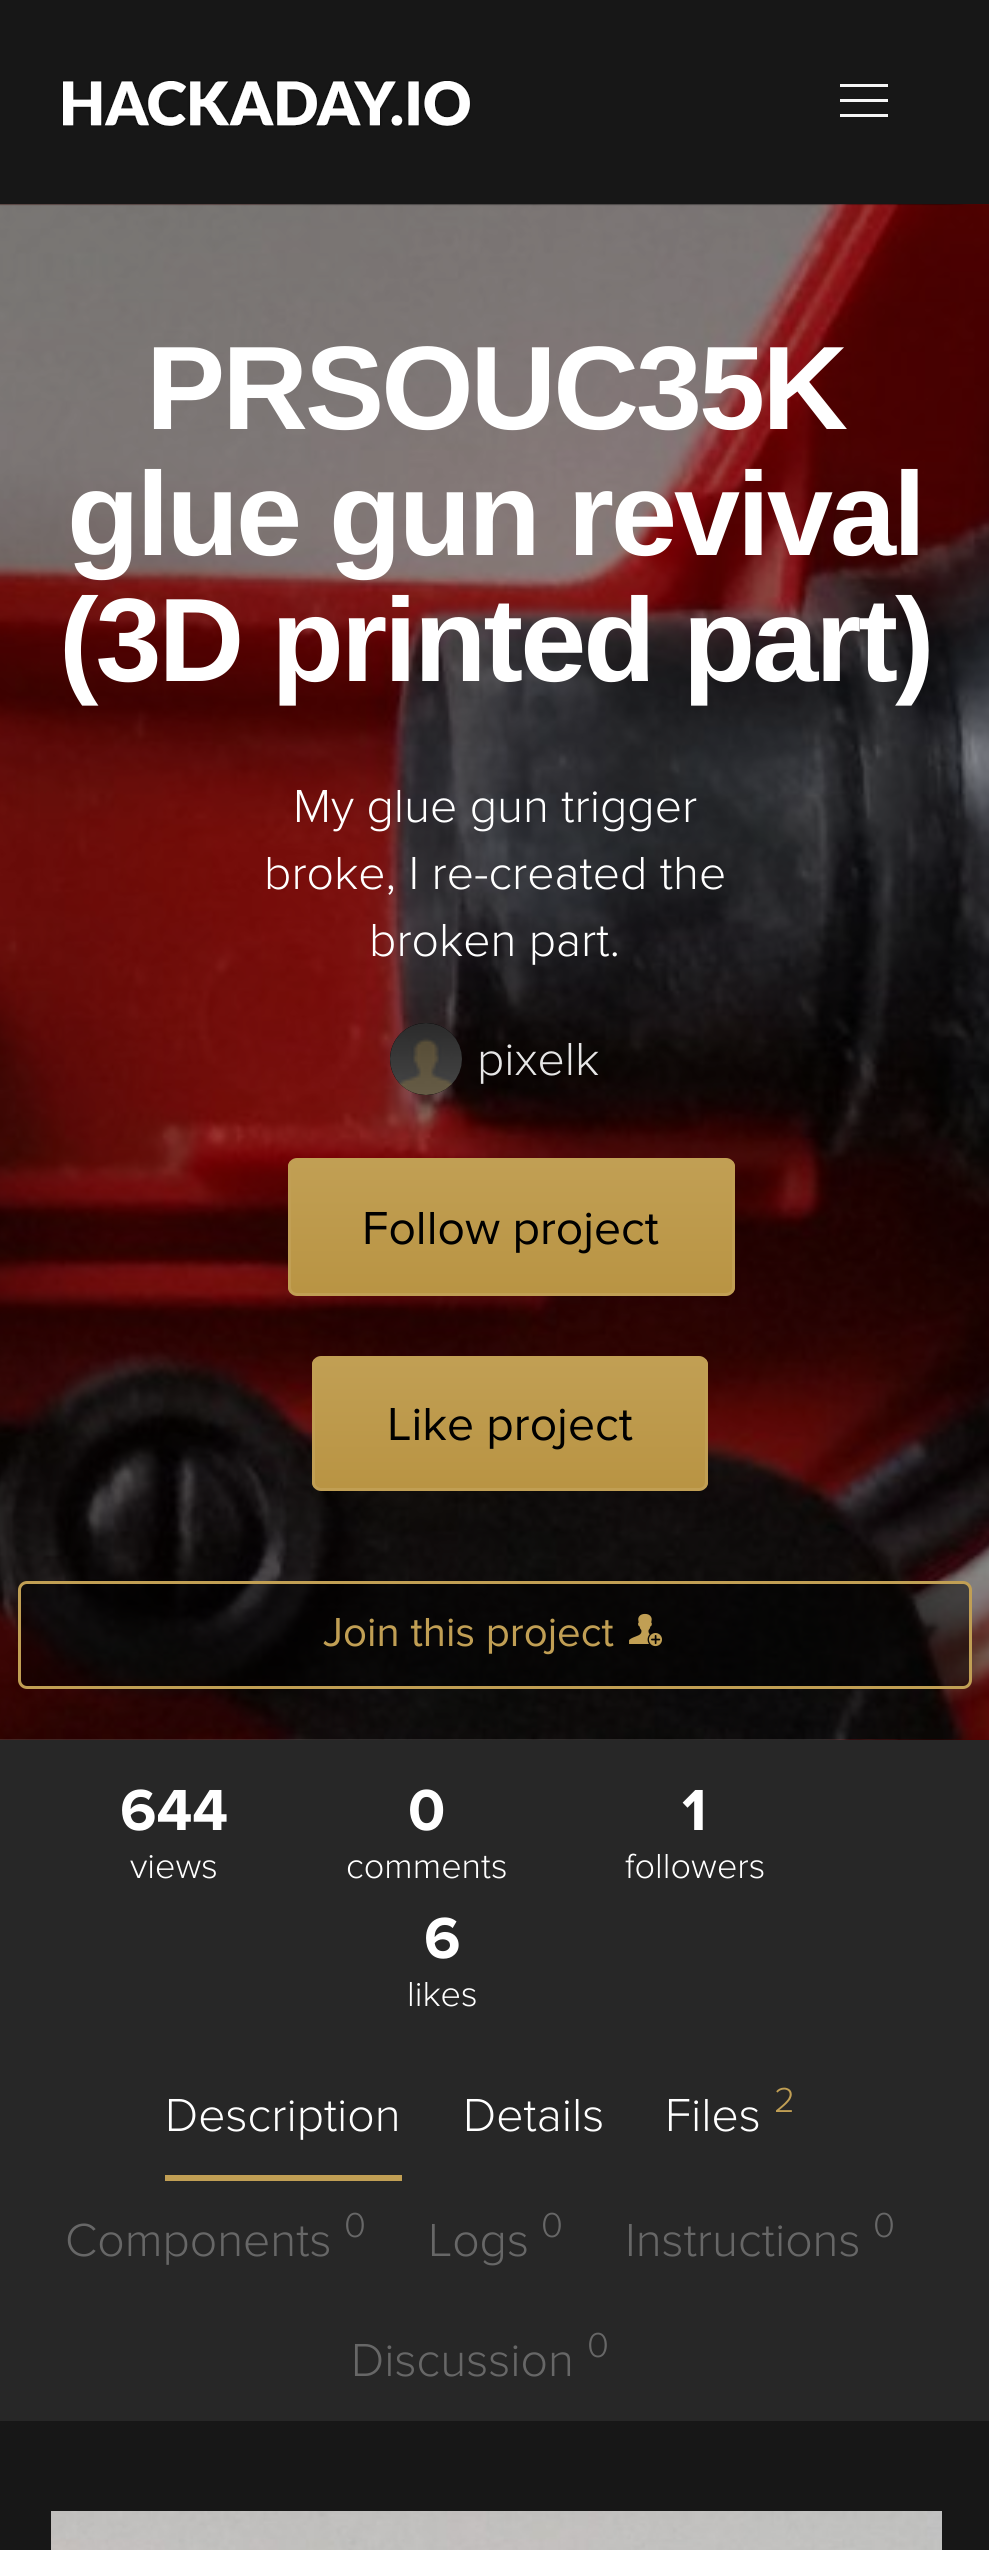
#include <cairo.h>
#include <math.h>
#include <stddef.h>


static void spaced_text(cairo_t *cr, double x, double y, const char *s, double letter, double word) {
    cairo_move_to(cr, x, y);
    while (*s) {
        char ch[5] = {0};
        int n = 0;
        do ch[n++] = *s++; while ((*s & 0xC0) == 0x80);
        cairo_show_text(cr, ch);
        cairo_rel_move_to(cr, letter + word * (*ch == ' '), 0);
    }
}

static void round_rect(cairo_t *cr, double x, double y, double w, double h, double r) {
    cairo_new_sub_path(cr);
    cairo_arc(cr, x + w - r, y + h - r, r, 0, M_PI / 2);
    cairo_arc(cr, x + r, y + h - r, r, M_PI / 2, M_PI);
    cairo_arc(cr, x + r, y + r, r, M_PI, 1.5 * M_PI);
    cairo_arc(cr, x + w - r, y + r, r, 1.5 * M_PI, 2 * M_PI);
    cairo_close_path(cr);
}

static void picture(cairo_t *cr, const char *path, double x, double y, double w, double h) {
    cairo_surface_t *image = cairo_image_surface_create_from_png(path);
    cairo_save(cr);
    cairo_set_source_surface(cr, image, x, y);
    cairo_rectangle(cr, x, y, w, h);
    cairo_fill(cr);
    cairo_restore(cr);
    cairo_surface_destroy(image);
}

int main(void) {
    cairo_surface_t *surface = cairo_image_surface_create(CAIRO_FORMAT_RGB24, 989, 2550);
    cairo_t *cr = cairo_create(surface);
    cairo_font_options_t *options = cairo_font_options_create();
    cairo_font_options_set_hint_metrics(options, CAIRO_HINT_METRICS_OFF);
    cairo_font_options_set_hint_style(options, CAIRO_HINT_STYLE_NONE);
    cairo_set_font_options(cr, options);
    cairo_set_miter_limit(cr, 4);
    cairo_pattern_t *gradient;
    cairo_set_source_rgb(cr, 0.09, 0.09, 0.09);
    cairo_paint(cr);
    picture(cr, "img1.png", 62, 80, 409, 47);
    cairo_set_source_rgb(cr, 0.961, 0.961, 0.961);
    cairo_rectangle(cr, 840, 84, 48, 3);
    cairo_fill(cr);
    cairo_rectangle(cr, 840, 99, 48, 3);
    cairo_fill(cr);
    cairo_rectangle(cr, 840, 114, 48, 3);
    cairo_fill(cr);
    picture(cr, "img2.png", 0, 204, 989, 1536);
    cairo_select_font_face(cr, "Liberation Sans", CAIRO_FONT_SLANT_NORMAL, CAIRO_FONT_WEIGHT_BOLD);
    cairo_set_font_size(cr, 118.75);
    cairo_set_source_rgb(cr, 1, 1, 1);
    spaced_text(cr, 146, 429, "PRSOUC35K", -3, 0);
    spaced_text(cr, 67, 555, "glue gun revival", -3, 0);
    spaced_text(cr, 59, 681, "(3D printed part)", -3, 0);
    cairo_select_font_face(cr, "Proxima Nova Light", CAIRO_FONT_SLANT_NORMAL, CAIRO_FONT_WEIGHT_NORMAL);
    cairo_set_font_size(cr, 48);
    cairo_move_to(cr, 293, 822);
    cairo_show_text(cr, "My glue gun trigger");
    cairo_move_to(cr, 264, 889);
    cairo_show_text(cr, "broke, I re-created the");
    cairo_move_to(cr, 369, 956);
    cairo_show_text(cr, "broken part.");
    cairo_set_source_rgb(cr, 0, 0, 0);
    cairo_new_path(cr);
    cairo_arc(cr, 426, 1059, 36, 0, 2 * M_PI);
    cairo_fill(cr);
    picture(cr, "img3.png", 390, 1023, 72, 72);
    cairo_set_source_rgb(cr, 0.902, 0.902, 0.902);
    cairo_move_to(cr, 477, 1075);
    cairo_show_text(cr, "pixelk");
    cairo_save(cr);
    round_rect(cr, 288, 1158, 447, 138, 9);
    cairo_clip(cr);
    gradient = cairo_pattern_create_linear(512, 1161, 512, 1293);
    cairo_pattern_add_color_stop_rgba(gradient, 0, 0.757, 0.624, 0.329, 1);
    cairo_pattern_add_color_stop_rgba(gradient, 1, 0.725, 0.58, 0.263, 1);
    cairo_set_source(cr, gradient);
    cairo_pattern_destroy(gradient);
    cairo_rectangle(cr, 288, 1161, 447, 132);
    cairo_fill(cr);
    cairo_restore(cr);
    round_rect(cr, 289.5, 1159.5, 444, 135, 7.5);
    cairo_set_source_rgb(cr, 0.757, 0.624, 0.329);
    cairo_set_line_width(cr, 3);
    cairo_stroke(cr);
    cairo_select_font_face(cr, "Proxima Nova", CAIRO_FONT_SLANT_NORMAL, CAIRO_FONT_WEIGHT_NORMAL);
    cairo_set_source_rgb(cr, 0, 0, 0);
    cairo_move_to(cr, 362, 1244);
    cairo_show_text(cr, "Follow project");
    cairo_save(cr);
    round_rect(cr, 312, 1356, 396, 135, 9);
    cairo_clip(cr);
    gradient = cairo_pattern_create_linear(510, 1359, 510, 1488);
    cairo_pattern_add_color_stop_rgba(gradient, 0, 0.757, 0.624, 0.329, 1);
    cairo_pattern_add_color_stop_rgba(gradient, 1, 0.725, 0.58, 0.263, 1);
    cairo_set_source(cr, gradient);
    cairo_pattern_destroy(gradient);
    cairo_rectangle(cr, 312, 1359, 396, 129);
    cairo_fill(cr);
    cairo_restore(cr);
    round_rect(cr, 313.5, 1357.5, 393, 132, 7.5);
    cairo_set_source_rgb(cr, 0.757, 0.624, 0.329);
    cairo_stroke(cr);
    cairo_set_source_rgb(cr, 0, 0, 0);
    cairo_move_to(cr, 387, 1440);
    cairo_show_text(cr, "Like project");
    cairo_set_source_rgba(cr, 0, 0, 0, 0.5);
    round_rect(cr, 19.5, 1582.5, 951, 105, 7.5);
    cairo_fill_preserve(cr);
    cairo_set_source_rgb(cr, 0.757, 0.624, 0.329);
    cairo_stroke(cr);
    cairo_set_font_size(cr, 42);
    cairo_move_to(cr, 323, 1646);
    cairo_show_text(cr, "Join this project");
    picture(cr, "img4.png", 629, 1613, 33, 34);
    cairo_set_source_rgb(cr, 0.153, 0.153, 0.153);
    cairo_rectangle(cr, 0, 1740, 989, 681);
    cairo_fill(cr);
    cairo_select_font_face(cr, "Proxima Nova", CAIRO_FONT_SLANT_NORMAL, CAIRO_FONT_WEIGHT_BOLD);
    cairo_set_font_size(cr, 60);
    cairo_set_source_rgb(cr, 1, 1, 1);
    cairo_move_to(cr, 120, 1830);
    cairo_show_text(cr, "644");
    cairo_select_font_face(cr, "Proxima Nova Light", CAIRO_FONT_SLANT_NORMAL, CAIRO_FONT_WEIGHT_NORMAL);
    cairo_set_font_size(cr, 36);
    cairo_move_to(cr, 130, 1878);
    cairo_show_text(cr, "views");
    cairo_select_font_face(cr, "Proxima Nova", CAIRO_FONT_SLANT_NORMAL, CAIRO_FONT_WEIGHT_BOLD);
    cairo_set_font_size(cr, 60);
    cairo_move_to(cr, 408, 1830);
    cairo_show_text(cr, "0");
    cairo_select_font_face(cr, "Proxima Nova Light", CAIRO_FONT_SLANT_NORMAL, CAIRO_FONT_WEIGHT_NORMAL);
    cairo_set_font_size(cr, 36);
    cairo_move_to(cr, 346, 1878);
    cairo_show_text(cr, "comments");
    cairo_select_font_face(cr, "Proxima Nova", CAIRO_FONT_SLANT_NORMAL, CAIRO_FONT_WEIGHT_BOLD);
    cairo_set_font_size(cr, 60);
    cairo_move_to(cr, 682, 1830);
    cairo_show_text(cr, "1");
    cairo_select_font_face(cr, "Proxima Nova Light", CAIRO_FONT_SLANT_NORMAL, CAIRO_FONT_WEIGHT_NORMAL);
    cairo_set_font_size(cr, 36);
    cairo_move_to(cr, 625, 1878);
    cairo_show_text(cr, "followers");
    cairo_select_font_face(cr, "Proxima Nova", CAIRO_FONT_SLANT_NORMAL, CAIRO_FONT_WEIGHT_BOLD);
    cairo_set_font_size(cr, 60);
    cairo_move_to(cr, 424, 1958);
    cairo_show_text(cr, "6");
    cairo_select_font_face(cr, "Proxima Nova Light", CAIRO_FONT_SLANT_NORMAL, CAIRO_FONT_WEIGHT_NORMAL);
    cairo_set_font_size(cr, 36);
    cairo_move_to(cr, 407, 2006);
    cairo_show_text(cr, "likes");
    cairo_set_source_rgb(cr, 0.757, 0.624, 0.329);
    cairo_rectangle(cr, 165, 2175, 237, 6);
    cairo_fill(cr);
    cairo_set_font_size(cr, 48);
    cairo_set_source_rgb(cr, 1, 1, 1);
    cairo_move_to(cr, 165, 2131);
    cairo_show_text(cr, "Description");
    cairo_move_to(cr, 463, 2131);
    cairo_show_text(cr, "Details");
    cairo_move_to(cr, 665, 2131);
    cairo_show_text(cr, "Files");
    cairo_set_font_size(cr, 36);
    cairo_set_source_rgb(cr, 0.757, 0.624, 0.329);
    cairo_move_to(cr, 774, 2112);
    cairo_show_text(cr, "2");
    cairo_set_font_size(cr, 48);
    cairo_set_source_rgb(cr, 0.404, 0.404, 0.404);
    cairo_move_to(cr, 65, 2256);
    cairo_show_text(cr, "Components");
    cairo_set_font_size(cr, 36);
    cairo_move_to(cr, 344, 2237);
    cairo_show_text(cr, "0");
    cairo_set_font_size(cr, 48);
    cairo_move_to(cr, 428, 2256);
    cairo_show_text(cr, "Logs");
    cairo_set_font_size(cr, 36);
    cairo_move_to(cr, 541, 2237);
    cairo_show_text(cr, "0");
    cairo_set_font_size(cr, 48);
    cairo_move_to(cr, 625, 2256);
    cairo_show_text(cr, "Instructions");
    cairo_set_font_size(cr, 36);
    cairo_move_to(cr, 873, 2237);
    cairo_show_text(cr, "0");
    cairo_set_font_size(cr, 48);
    cairo_move_to(cr, 351, 2376);
    cairo_show_text(cr, "Discussion");
    cairo_set_font_size(cr, 36);
    cairo_move_to(cr, 587, 2357);
    cairo_show_text(cr, "0");
    picture(cr, "img5.png", 51, 2511, 891, 39);
    cairo_surface_write_to_png(surface, "page.png");
    cairo_font_options_destroy(options);
    cairo_destroy(cr);
    cairo_surface_destroy(surface);
    return 0;
}
